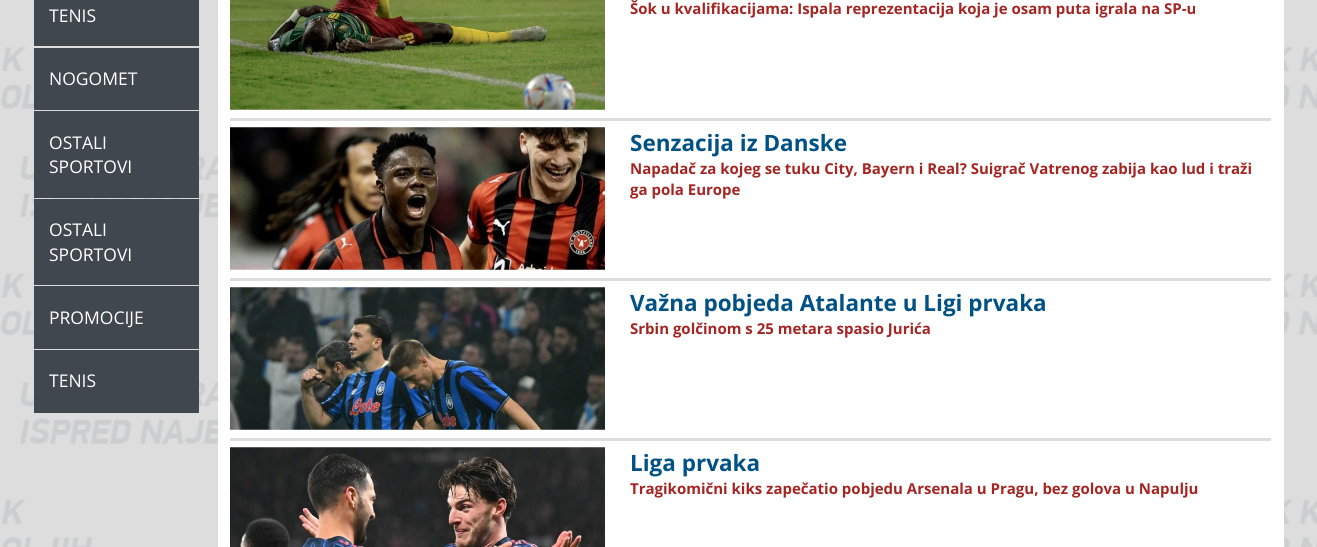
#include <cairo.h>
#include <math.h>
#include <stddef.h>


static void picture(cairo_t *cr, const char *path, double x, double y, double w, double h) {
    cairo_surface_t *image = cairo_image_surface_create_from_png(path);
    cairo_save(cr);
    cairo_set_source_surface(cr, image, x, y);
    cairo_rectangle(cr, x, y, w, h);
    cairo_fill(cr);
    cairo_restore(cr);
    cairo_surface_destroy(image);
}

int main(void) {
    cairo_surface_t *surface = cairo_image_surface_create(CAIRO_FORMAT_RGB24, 1317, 547);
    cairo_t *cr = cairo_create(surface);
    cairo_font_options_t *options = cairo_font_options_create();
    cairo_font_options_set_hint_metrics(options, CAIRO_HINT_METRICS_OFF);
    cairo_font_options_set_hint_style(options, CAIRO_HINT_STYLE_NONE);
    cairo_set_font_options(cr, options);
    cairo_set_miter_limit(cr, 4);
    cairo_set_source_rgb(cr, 0.867, 0.867, 0.867);
    cairo_paint(cr);
    picture(cr, "img1.png", 1, 47, 1316, 500);
    cairo_set_source_rgb(cr, 0.255, 0.278, 0.31);
    cairo_rectangle(cr, 34, 0, 165, 46);
    cairo_fill(cr);
    cairo_select_font_face(cr, "Open Sans", CAIRO_FONT_SLANT_NORMAL, CAIRO_FONT_WEIGHT_NORMAL);
    cairo_set_font_size(cr, 17.5);
    cairo_set_source_rgb(cr, 1, 1, 1);
    cairo_move_to(cr, 49, 22);
    cairo_show_text(cr, "TENIS");
    cairo_set_source_rgb(cr, 0.255, 0.278, 0.31);
    cairo_rectangle(cr, 34, 48, 165, 62);
    cairo_fill(cr);
    cairo_set_source_rgb(cr, 1, 1, 1);
    cairo_move_to(cr, 49, 85);
    cairo_show_text(cr, "NOGOMET");
    cairo_set_source_rgb(cr, 0.255, 0.278, 0.31);
    cairo_rectangle(cr, 34, 111, 165, 87);
    cairo_fill(cr);
    cairo_set_source_rgb(cr, 1, 1, 1);
    cairo_move_to(cr, 49, 149);
    cairo_show_text(cr, "OSTALI");
    cairo_move_to(cr, 49, 173);
    cairo_show_text(cr, "SPORTOVI");
    cairo_set_source_rgb(cr, 0.255, 0.278, 0.31);
    cairo_rectangle(cr, 34, 199, 165, 86);
    cairo_fill(cr);
    cairo_set_source_rgb(cr, 1, 1, 1);
    cairo_move_to(cr, 49, 236);
    cairo_show_text(cr, "OSTALI");
    cairo_move_to(cr, 49, 261);
    cairo_show_text(cr, "SPORTOVI");
    cairo_set_source_rgb(cr, 0.255, 0.278, 0.31);
    cairo_rectangle(cr, 34, 286, 165, 63);
    cairo_fill(cr);
    cairo_set_source_rgb(cr, 1, 1, 1);
    cairo_move_to(cr, 49, 324);
    cairo_show_text(cr, "PROMOCIJE");
    cairo_set_source_rgb(cr, 0.255, 0.278, 0.31);
    cairo_rectangle(cr, 34, 350, 165, 63);
    cairo_fill(cr);
    cairo_set_source_rgb(cr, 1, 1, 1);
    cairo_move_to(cr, 49, 387);
    cairo_show_text(cr, "TENIS");
    cairo_rectangle(cr, 218, 0, 1066, 547);
    cairo_fill(cr);
    picture(cr, "img2.png", 230, 0, 375, 110);
    cairo_select_font_face(cr, "Open Sans", CAIRO_FONT_SLANT_NORMAL, CAIRO_FONT_WEIGHT_BOLD);
    cairo_set_font_size(cr, 15);
    cairo_set_source_rgb(cr, 0.643, 0.145, 0.133);
    cairo_move_to(cr, 630, 14);
    cairo_show_text(cr, "Šok u kvalifikacijama: Ispala reprezentacija koja je osam puta igrala na SP-u");
    cairo_set_source_rgb(cr, 0.867, 0.867, 0.867);
    cairo_rectangle(cr, 230, 118, 1041, 3);
    cairo_fill(cr);
    picture(cr, "img3.png", 230, 127, 375, 143);
    cairo_set_font_size(cr, 22.5);
    cairo_set_source_rgb(cr, 0, 0.322, 0.525);
    cairo_move_to(cr, 630, 151);
    cairo_show_text(cr, "Senzacija iz Danske");
    cairo_set_font_size(cr, 15);
    cairo_set_source_rgb(cr, 0.643, 0.145, 0.133);
    cairo_move_to(cr, 630, 174);
    cairo_show_text(cr, "Napadač za kojeg se tuku City, Bayern i Real? Suigrač Vatrenog zabija kao lud i traži");
    cairo_move_to(cr, 630, 195);
    cairo_show_text(cr, "ga pola Europe");
    cairo_set_source_rgb(cr, 0.867, 0.867, 0.867);
    cairo_rectangle(cr, 230, 278, 1041, 3);
    cairo_fill(cr);
    picture(cr, "img4.png", 230, 287, 375, 143);
    cairo_set_font_size(cr, 22.5);
    cairo_set_source_rgb(cr, 0, 0.322, 0.525);
    cairo_move_to(cr, 630, 311);
    cairo_show_text(cr, "Važna pobjeda Atalante u Ligi prvaka");
    cairo_set_font_size(cr, 15);
    cairo_set_source_rgb(cr, 0.643, 0.145, 0.133);
    cairo_move_to(cr, 630, 334);
    cairo_show_text(cr, "Srbin golčinom s 25 metara spasio Jurića");
    cairo_set_source_rgb(cr, 0.867, 0.867, 0.867);
    cairo_rectangle(cr, 230, 438, 1041, 3);
    cairo_fill(cr);
    picture(cr, "img5.png", 230, 447, 375, 100);
    cairo_set_font_size(cr, 22.5);
    cairo_set_source_rgb(cr, 0, 0.322, 0.525);
    cairo_move_to(cr, 630, 471);
    cairo_show_text(cr, "Liga prvaka");
    cairo_set_font_size(cr, 15);
    cairo_set_source_rgb(cr, 0.643, 0.145, 0.133);
    cairo_move_to(cr, 630, 494);
    cairo_show_text(cr, "Tragikomični kiks zapečatio pobjedu Arsenala u Pragu, bez golova u Napulju");
    cairo_surface_write_to_png(surface, "page.png");
    cairo_font_options_destroy(options);
    cairo_destroy(cr);
    cairo_surface_destroy(surface);
    return 0;
}
